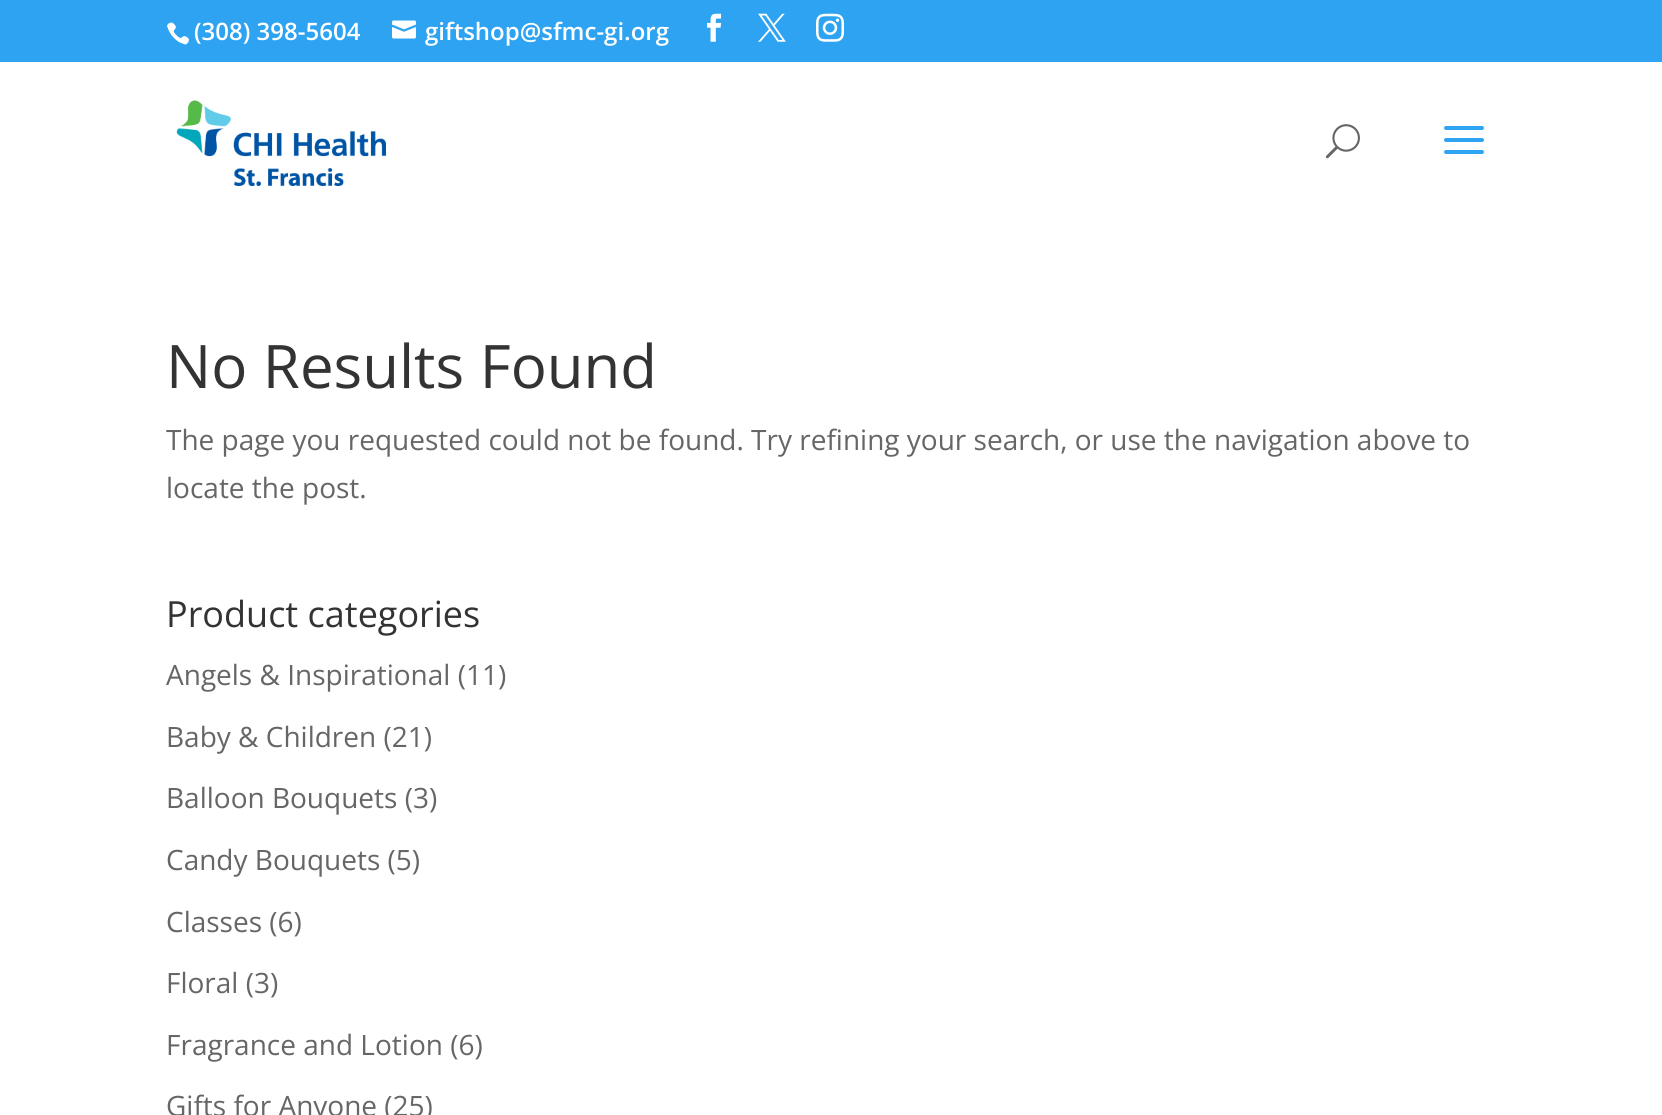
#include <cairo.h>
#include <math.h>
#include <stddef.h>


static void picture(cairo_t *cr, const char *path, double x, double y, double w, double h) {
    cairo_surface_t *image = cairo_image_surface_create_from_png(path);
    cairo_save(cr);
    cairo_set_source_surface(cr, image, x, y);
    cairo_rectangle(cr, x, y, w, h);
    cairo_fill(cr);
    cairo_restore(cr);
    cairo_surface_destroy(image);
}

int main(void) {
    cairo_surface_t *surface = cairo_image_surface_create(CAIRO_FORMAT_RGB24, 1662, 1115);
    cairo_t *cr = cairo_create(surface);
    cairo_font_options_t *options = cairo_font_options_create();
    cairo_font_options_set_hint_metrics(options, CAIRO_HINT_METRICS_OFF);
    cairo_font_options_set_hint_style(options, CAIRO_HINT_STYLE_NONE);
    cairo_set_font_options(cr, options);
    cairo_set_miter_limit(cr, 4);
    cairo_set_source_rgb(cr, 1, 1, 1);
    cairo_paint(cr);
    cairo_set_source_rgb(cr, 0.18, 0.639, 0.949);
    cairo_rectangle(cr, 0, 0, 1662, 62);
    cairo_fill(cr);
    picture(cr, "img1.png", 167, 22, 22, 23);
    cairo_select_font_face(cr, "Open Sans SemiBold", CAIRO_FONT_SLANT_NORMAL, CAIRO_FONT_WEIGHT_NORMAL);
    cairo_set_font_size(cr, 24);
    cairo_set_source_rgb(cr, 1, 1, 1);
    cairo_move_to(cr, 194, 40);
    cairo_show_text(cr, "(308) 398-5604");
    picture(cr, "img2.png", 392, 20, 24, 19);
    cairo_move_to(cr, 425, 40);
    cairo_show_text(cr, "giftshop@sfmc-gi.org");
    picture(cr, "img3.png", 707, 13, 15, 29);
    picture(cr, "img4.png", 758, 13, 28, 29);
    picture(cr, "img5.png", 816, 13, 28, 29);
    picture(cr, "img6.png", 176, 100, 210, 86);
    picture(cr, "img7.png", 1325, 124, 35, 35);
    picture(cr, "img8.png", 1444, 126, 40, 28);
    cairo_select_font_face(cr, "Open Sans", CAIRO_FONT_SLANT_NORMAL, CAIRO_FONT_WEIGHT_NORMAL);
    cairo_set_font_size(cr, 60);
    cairo_set_source_rgb(cr, 0.2, 0.2, 0.2);
    cairo_move_to(cr, 166, 388);
    cairo_show_text(cr, "No Results Found");
    cairo_set_font_size(cr, 28);
    cairo_set_source_rgb(cr, 0.4, 0.4, 0.4);
    cairo_move_to(cr, 166, 450);
    cairo_show_text(cr, "The page you requested could not be found. Try refining your search, or use the navigation above to");
    cairo_move_to(cr, 166, 498);
    cairo_show_text(cr, "locate the post.");
    cairo_set_font_size(cr, 36);
    cairo_set_source_rgb(cr, 0.2, 0.2, 0.2);
    cairo_move_to(cr, 166, 627);
    cairo_show_text(cr, "Product categories");
    cairo_set_font_size(cr, 28);
    cairo_set_source_rgb(cr, 0.4, 0.4, 0.4);
    cairo_move_to(cr, 166, 685);
    cairo_show_text(cr, "Angels & Inspirational (11)");
    cairo_move_to(cr, 166, 747);
    cairo_show_text(cr, "Baby & Children (21)");
    cairo_move_to(cr, 166, 808);
    cairo_show_text(cr, "Balloon Bouquets (3)");
    cairo_move_to(cr, 166, 870);
    cairo_show_text(cr, "Candy Bouquets (5)");
    cairo_move_to(cr, 166, 932);
    cairo_show_text(cr, "Classes (6)");
    cairo_move_to(cr, 166, 993);
    cairo_show_text(cr, "Floral (3)");
    cairo_move_to(cr, 166, 1055);
    cairo_show_text(cr, "Fragrance and Lotion (6)");
    cairo_move_to(cr, 166, 1116);
    cairo_show_text(cr, "Gifts for Anyone (25)");
    cairo_surface_write_to_png(surface, "page.png");
    cairo_font_options_destroy(options);
    cairo_destroy(cr);
    cairo_surface_destroy(surface);
    return 0;
}
